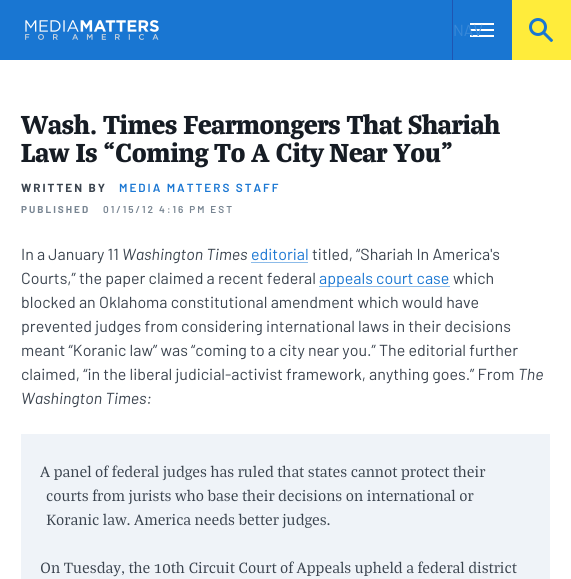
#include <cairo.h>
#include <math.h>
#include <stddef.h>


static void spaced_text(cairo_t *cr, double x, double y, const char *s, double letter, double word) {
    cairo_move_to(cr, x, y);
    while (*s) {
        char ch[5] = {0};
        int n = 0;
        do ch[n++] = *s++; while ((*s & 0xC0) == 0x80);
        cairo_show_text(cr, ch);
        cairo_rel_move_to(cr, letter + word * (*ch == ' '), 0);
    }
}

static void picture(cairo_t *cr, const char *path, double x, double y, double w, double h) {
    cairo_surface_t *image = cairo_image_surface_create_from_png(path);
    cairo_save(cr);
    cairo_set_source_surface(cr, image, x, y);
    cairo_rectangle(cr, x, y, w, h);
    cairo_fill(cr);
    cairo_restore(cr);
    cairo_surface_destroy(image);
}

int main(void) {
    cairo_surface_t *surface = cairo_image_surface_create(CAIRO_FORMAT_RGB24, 571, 579);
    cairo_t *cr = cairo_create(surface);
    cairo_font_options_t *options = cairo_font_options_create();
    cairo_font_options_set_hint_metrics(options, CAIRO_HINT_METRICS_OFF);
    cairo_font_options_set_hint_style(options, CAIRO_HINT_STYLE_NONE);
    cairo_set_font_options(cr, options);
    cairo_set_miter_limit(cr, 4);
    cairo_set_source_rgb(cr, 1, 1, 1);
    cairo_paint(cr);
    cairo_set_source_rgb(cr, 0.098, 0.463, 0.824);
    cairo_rectangle(cr, 0, 0, 512, 60);
    cairo_fill(cr);
    picture(cr, "img1.png", 25, 20, 134, 20);
    picture(cr, "img2.png", 470, 23, 24, 14);
    cairo_set_source_rgb(cr, 0.125, 0.333, 0.698);
    cairo_rectangle(cr, 452, 0, 1, 60);
    cairo_fill(cr);
    cairo_select_font_face(cr, "Barlow", CAIRO_FONT_SLANT_NORMAL, CAIRO_FONT_WEIGHT_NORMAL);
    cairo_set_font_size(cr, 16);
    cairo_set_source_rgb(cr, 0.22, 0.533, 0.847);
    cairo_move_to(cr, 453, 36);
    cairo_show_text(cr, "NAV");
    cairo_set_source_rgb(cr, 1, 0.922, 0.231);
    cairo_rectangle(cr, 512, 0, 59, 60);
    cairo_fill(cr);
    picture(cr, "img3.png", 529, 18, 24, 24);
    cairo_select_font_face(cr, "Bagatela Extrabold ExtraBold", CAIRO_FONT_SLANT_NORMAL, CAIRO_FONT_WEIGHT_NORMAL);
    cairo_set_font_size(cr, 28.2);
    cairo_set_source_rgb(cr, 0.086, 0.11, 0.141);
    cairo_move_to(cr, 21, 134);
    cairo_show_text(cr, "Wash. Times Fearmongers That Shariah");
    cairo_move_to(cr, 21, 162);
    cairo_show_text(cr, "Law Is “Coming To A City Near You”");
    cairo_select_font_face(cr, "Barlow", CAIRO_FONT_SLANT_NORMAL, CAIRO_FONT_WEIGHT_BOLD);
    cairo_set_font_size(cr, 11.75);
    cairo_set_source_rgb(cr, 0.227, 0.263, 0.306);
    spaced_text(cr, 21, 192, "WRITTEN BY", 2, 0);
    cairo_select_font_face(cr, "Barlow SemiBold", CAIRO_FONT_SLANT_NORMAL, CAIRO_FONT_WEIGHT_NORMAL);
    cairo_set_source_rgb(cr, 0.098, 0.463, 0.824);
    spaced_text(cr, 119, 192, "MEDIA MATTERS STAFF", 2, 0);
    cairo_select_font_face(cr, "Barlow", CAIRO_FONT_SLANT_NORMAL, CAIRO_FONT_WEIGHT_BOLD);
    cairo_set_font_size(cr, 10);
    cairo_set_source_rgb(cr, 0.471, 0.522, 0.573);
    spaced_text(cr, 21, 213, "PUBLISHED", 2, 0);
    cairo_select_font_face(cr, "Barlow SemiBold", CAIRO_FONT_SLANT_NORMAL, CAIRO_FONT_WEIGHT_NORMAL);
    spaced_text(cr, 103, 213, "01/15/12 4:16 PM EST", 2, 0);
    cairo_select_font_face(cr, "Barlow", CAIRO_FONT_SLANT_NORMAL, CAIRO_FONT_WEIGHT_NORMAL);
    cairo_set_font_size(cr, 16);
    cairo_set_source_rgb(cr, 0.227, 0.263, 0.306);
    cairo_move_to(cr, 21, 260);
    cairo_show_text(cr, "In a January 11");
    cairo_select_font_face(cr, "Barlow", CAIRO_FONT_SLANT_ITALIC, CAIRO_FONT_WEIGHT_NORMAL);
    cairo_move_to(cr, 122, 260);
    cairo_show_text(cr, "Washington Times");
    cairo_select_font_face(cr, "Barlow", CAIRO_FONT_SLANT_NORMAL, CAIRO_FONT_WEIGHT_NORMAL);
    cairo_set_source_rgb(cr, 0.098, 0.463, 0.824);
    cairo_move_to(cr, 251, 260);
    cairo_show_text(cr, "editorial");
    cairo_set_source_rgb(cr, 0.549, 0.733, 0.914);
    cairo_rectangle(cr, 251, 262, 57, 1);
    cairo_fill(cr);
    cairo_set_source_rgb(cr, 0.227, 0.263, 0.306);
    cairo_move_to(cr, 312, 260);
    cairo_show_text(cr, "titled, “Shariah In America's");
    cairo_move_to(cr, 21, 284);
    cairo_show_text(cr, "Courts,” the paper claimed a recent federal");
    cairo_set_source_rgb(cr, 0.549, 0.733, 0.914);
    cairo_rectangle(cr, 319, 286, 131, 1);
    cairo_fill(cr);
    cairo_set_source_rgb(cr, 0.098, 0.463, 0.824);
    cairo_move_to(cr, 319, 284);
    cairo_show_text(cr, "appeals court case");
    cairo_set_source_rgb(cr, 0.227, 0.263, 0.306);
    cairo_move_to(cr, 453, 284);
    cairo_show_text(cr, "which");
    cairo_move_to(cr, 21, 308);
    cairo_show_text(cr, "blocked an Oklahoma constitutional amendment which would have");
    cairo_move_to(cr, 21, 332);
    cairo_show_text(cr, "prevented judges from considering international laws in their decisions");
    cairo_move_to(cr, 21, 356);
    cairo_show_text(cr, "meant “Koranic law” was “coming to a city near you.” The editorial further");
    cairo_move_to(cr, 21, 380);
    cairo_show_text(cr, "claimed, “in the liberal judicial-activist framework, anything goes.” From");
    cairo_select_font_face(cr, "Barlow", CAIRO_FONT_SLANT_ITALIC, CAIRO_FONT_WEIGHT_NORMAL);
    cairo_move_to(cr, 518, 380);
    cairo_show_text(cr, "The");
    cairo_move_to(cr, 21, 404);
    cairo_show_text(cr, "Washington Times:");
    cairo_set_source_rgb(cr, 0.937, 0.953, 0.969);
    cairo_rectangle(cr, 21, 434, 529, 145);
    cairo_fill(cr);
    cairo_select_font_face(cr, "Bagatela", CAIRO_FONT_SLANT_NORMAL, CAIRO_FONT_WEIGHT_NORMAL);
    cairo_set_source_rgb(cr, 0.227, 0.263, 0.306);
    cairo_move_to(cr, 40, 477);
    cairo_show_text(cr, "A panel of federal judges has ruled that states cannot protect their");
    cairo_move_to(cr, 46, 501);
    cairo_show_text(cr, "courts from jurists who base their decisions on international or");
    cairo_move_to(cr, 46, 525);
    cairo_show_text(cr, "Koranic law. America needs better judges.");
    cairo_move_to(cr, 40, 573);
    cairo_show_text(cr, "On Tuesday, the 10th Circuit Court of Appeals upheld a federal district");
    cairo_surface_write_to_png(surface, "page.png");
    cairo_font_options_destroy(options);
    cairo_destroy(cr);
    cairo_surface_destroy(surface);
    return 0;
}
